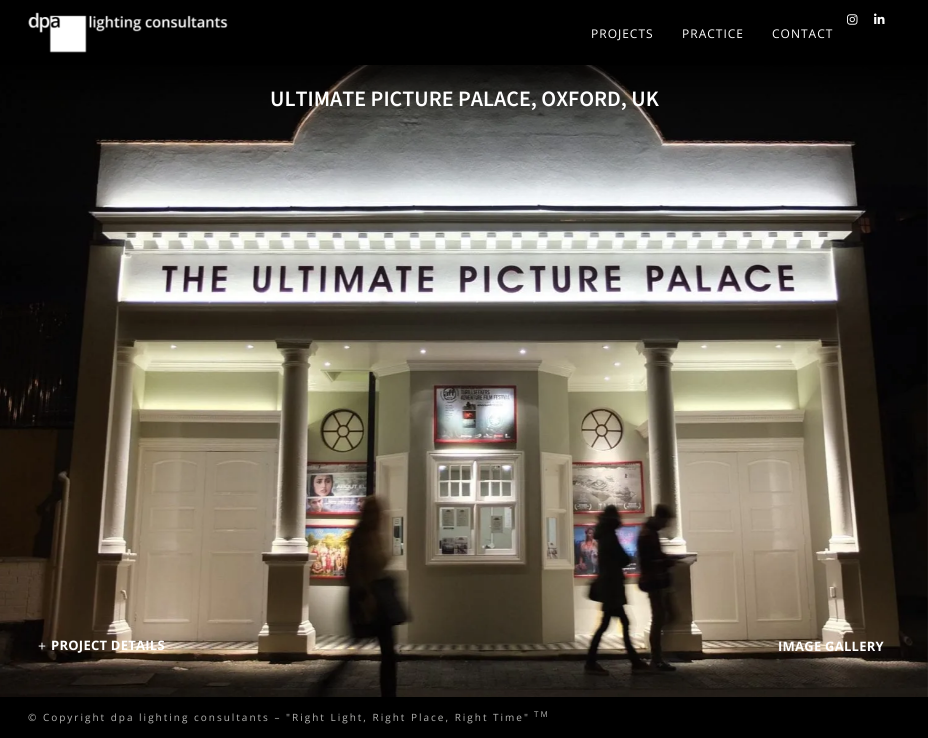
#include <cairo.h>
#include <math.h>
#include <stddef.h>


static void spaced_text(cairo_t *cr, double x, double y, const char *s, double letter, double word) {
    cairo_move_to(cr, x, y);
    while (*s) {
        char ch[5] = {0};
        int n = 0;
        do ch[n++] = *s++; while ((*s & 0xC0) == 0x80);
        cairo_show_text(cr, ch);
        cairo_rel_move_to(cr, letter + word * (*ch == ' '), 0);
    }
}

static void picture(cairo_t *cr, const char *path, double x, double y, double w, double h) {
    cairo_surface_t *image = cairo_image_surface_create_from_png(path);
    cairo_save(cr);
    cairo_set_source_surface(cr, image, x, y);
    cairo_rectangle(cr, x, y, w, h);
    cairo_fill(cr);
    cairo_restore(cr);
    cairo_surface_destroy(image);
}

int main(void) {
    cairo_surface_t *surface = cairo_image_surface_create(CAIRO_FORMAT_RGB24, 928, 738);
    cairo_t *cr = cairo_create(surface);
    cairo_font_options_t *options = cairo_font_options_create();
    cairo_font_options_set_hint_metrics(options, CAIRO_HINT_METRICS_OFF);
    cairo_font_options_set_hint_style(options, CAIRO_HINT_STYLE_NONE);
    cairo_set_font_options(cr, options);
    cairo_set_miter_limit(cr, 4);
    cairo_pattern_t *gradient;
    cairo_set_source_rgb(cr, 1, 1, 1);
    cairo_paint(cr);
    cairo_set_source_rgb(cr, 0, 0, 0);
    cairo_rectangle(cr, 0, 0, 928, 65);
    cairo_fill(cr);
    picture(cr, "img1.png", 28, 12, 200, 41);
    picture(cr, "img2.png", 847, 14, 11, 11);
    picture(cr, "img3.png", 874, 13, 11, 11);
    cairo_select_font_face(cr, "Open Sans", CAIRO_FONT_SLANT_NORMAL, CAIRO_FONT_WEIGHT_NORMAL);
    cairo_set_font_size(cr, 12);
    cairo_set_source_rgb(cr, 1, 1, 1);
    spaced_text(cr, 591, 38, "PROJECTS", 1, 0);
    spaced_text(cr, 682, 38, "PRACTICE", 1, 0);
    spaced_text(cr, 772, 38, "CONTACT", 1, 0);
    picture(cr, "img4.png", 0, 65, 928, 632);
    gradient = cairo_pattern_create_linear(464, 105, 464, 65);
    cairo_pattern_add_color_stop_rgba(gradient, 0, 0, 0, 0, 0);
    cairo_pattern_add_color_stop_rgba(gradient, 1, 0, 0, 0, 0.8);
    cairo_set_source(cr, gradient);
    cairo_pattern_destroy(gradient);
    cairo_rectangle(cr, 0, 65, 928, 39);
    cairo_fill(cr);
    cairo_select_font_face(cr, "Source Sans 3 ExtraLight", CAIRO_FONT_SLANT_NORMAL, CAIRO_FONT_WEIGHT_NORMAL);
    cairo_set_font_size(cr, 22);
    cairo_set_source_rgb(cr, 1, 1, 1);
    cairo_move_to(cr, 270, 106);
    cairo_show_text(cr, "ULTIMATE PICTURE PALACE, OXFORD, UK");
    cairo_select_font_face(cr, "Open Sans", CAIRO_FONT_SLANT_NORMAL, CAIRO_FONT_WEIGHT_NORMAL);
    cairo_set_font_size(cr, 14);
    cairo_move_to(cr, 38, 651);
    cairo_show_text(cr, "+");
    cairo_select_font_face(cr, "Open Sans", CAIRO_FONT_SLANT_NORMAL, CAIRO_FONT_WEIGHT_BOLD);
    cairo_set_font_size(cr, 13);
    spaced_text(cr, 51, 650, "PROJECT DETAILS", 0.25, 0);
    spaced_text(cr, 778, 651, "IMAGE GALLERY", 0.25, 0);
    cairo_set_source_rgb(cr, 0, 0, 0);
    cairo_rectangle(cr, 0, 697, 928, 41);
    cairo_fill(cr);
    cairo_select_font_face(cr, "Open Sans", CAIRO_FONT_SLANT_NORMAL, CAIRO_FONT_WEIGHT_NORMAL);
    cairo_set_font_size(cr, 10);
    cairo_set_source_rgb(cr, 0.702, 0.702, 0.694);
    spaced_text(cr, 28, 721, "© Copyright dpa lighting consultants – \"Right Light, Right Place, Right Time\"", 2, 0);
    cairo_set_font_size(cr, 8);
    spaced_text(cr, 534, 717, "TM", 2, 0);
    cairo_surface_write_to_png(surface, "page.png");
    cairo_font_options_destroy(options);
    cairo_destroy(cr);
    cairo_surface_destroy(surface);
    return 0;
}
